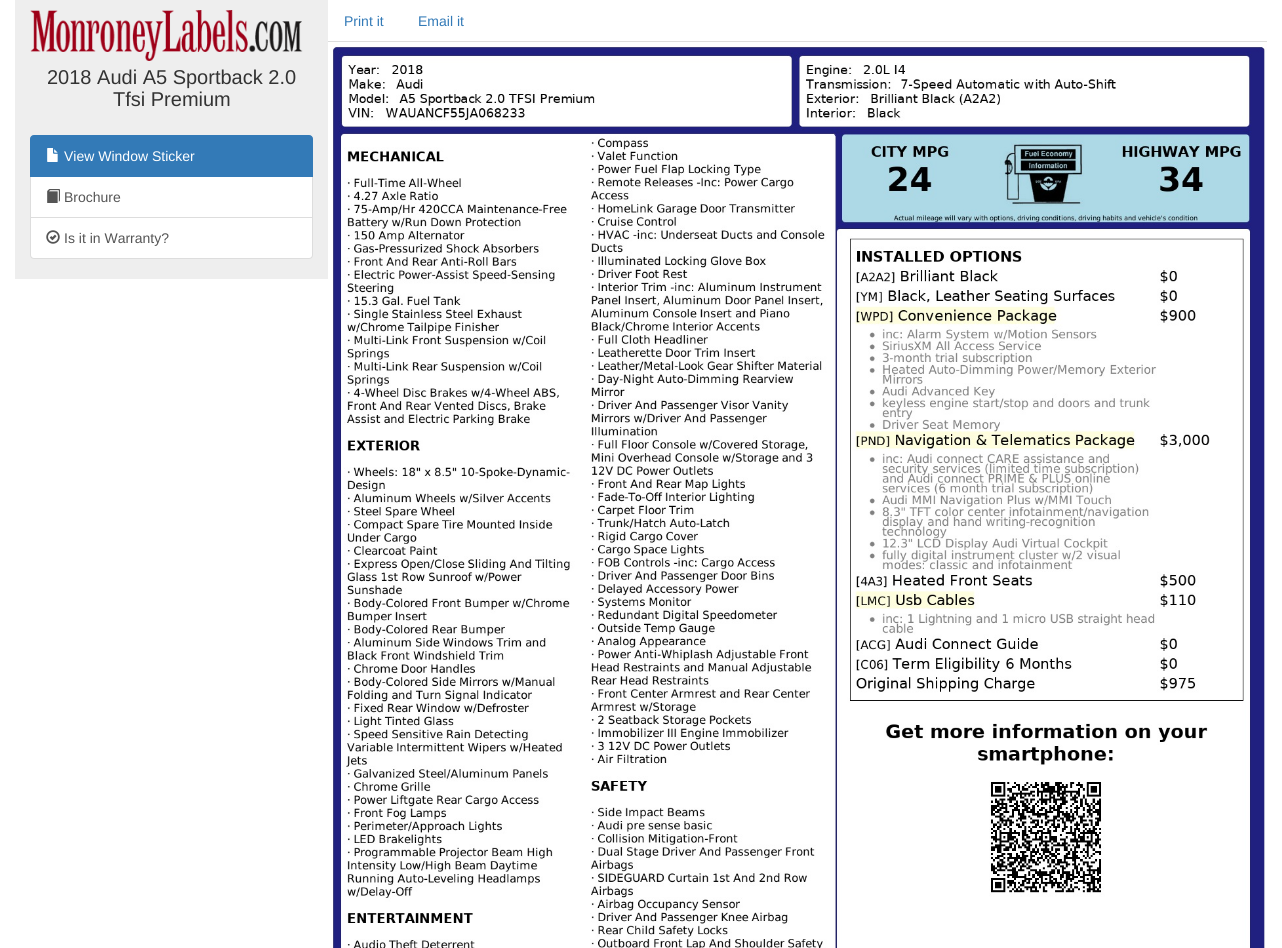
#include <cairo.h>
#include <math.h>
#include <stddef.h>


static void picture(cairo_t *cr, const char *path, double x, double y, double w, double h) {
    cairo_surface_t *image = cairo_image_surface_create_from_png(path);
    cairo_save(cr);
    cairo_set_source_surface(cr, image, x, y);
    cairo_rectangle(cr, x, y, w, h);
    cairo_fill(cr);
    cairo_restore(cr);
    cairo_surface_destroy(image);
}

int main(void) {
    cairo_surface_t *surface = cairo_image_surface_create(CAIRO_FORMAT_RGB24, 1282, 948);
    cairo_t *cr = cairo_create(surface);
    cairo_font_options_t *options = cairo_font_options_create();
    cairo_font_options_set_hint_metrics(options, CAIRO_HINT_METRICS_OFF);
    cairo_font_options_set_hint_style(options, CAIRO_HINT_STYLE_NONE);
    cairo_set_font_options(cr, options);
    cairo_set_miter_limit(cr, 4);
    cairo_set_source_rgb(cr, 1, 1, 1);
    cairo_paint(cr);
    cairo_set_source_rgb(cr, 0.867, 0.867, 0.867);
    cairo_rectangle(cr, 328, 41, 939, 1);
    cairo_fill(cr);
    cairo_select_font_face(cr, "Liberation Sans", CAIRO_FONT_SLANT_NORMAL, CAIRO_FONT_WEIGHT_NORMAL);
    cairo_set_font_size(cr, 14);
    cairo_set_source_rgb(cr, 0.2, 0.478, 0.718);
    cairo_move_to(cr, 344, 26);
    cairo_show_text(cr, "Print it");
    cairo_move_to(cr, 418, 26);
    cairo_show_text(cr, "Email it");
    picture(cr, "img1.png", 330, 42, 937, 906);
    cairo_set_source_rgb(cr, 0.933, 0.933, 0.933);
    cairo_rectangle(cr, 15, 0, 313, 279);
    cairo_fill(cr);
    picture(cr, "img2.png", 30, 10, 273, 51);
    cairo_set_font_size(cr, 20);
    cairo_set_source_rgb(cr, 0.2, 0.2, 0.2);
    cairo_move_to(cr, 47, 84);
    cairo_show_text(cr, "2018 Audi A5 Sportback 2.0");
    cairo_move_to(cr, 113, 106);
    cairo_show_text(cr, "Tfsi Premium");
    cairo_set_source_rgb(cr, 1, 1, 1);
    cairo_rectangle(cr, 30.5, 176.5, 282, 41);
    cairo_fill_preserve(cr);
    cairo_set_source_rgb(cr, 0.867, 0.867, 0.867);
    cairo_set_line_width(cr, 1);
    cairo_stroke(cr);
    cairo_set_source_rgb(cr, 0.2, 0.478, 0.718);
    cairo_new_path(cr);
    cairo_move_to(cr, 34, 135.5);
    cairo_line_to(cr, 309, 135.5);
    cairo_curve_to(cr, 311, 135.5, 312.5, 137, 312.5, 139);
    cairo_line_to(cr, 312.5, 176.5);
    cairo_line_to(cr, 30.5, 176.5);
    cairo_line_to(cr, 30.5, 139);
    cairo_curve_to(cr, 30.5, 137, 32, 135.5, 34, 135.5);
    cairo_close_path(cr);
    cairo_fill_preserve(cr);
    cairo_stroke(cr);
    picture(cr, "img3.png", 47, 148, 11, 14);
    cairo_set_font_size(cr, 14);
    cairo_set_source_rgb(cr, 1, 1, 1);
    cairo_move_to(cr, 64, 161);
    cairo_show_text(cr, "View Window Sticker");
    picture(cr, "img4.png", 47, 189, 13, 14);
    cairo_set_source_rgb(cr, 0.333, 0.333, 0.333);
    cairo_move_to(cr, 64, 202);
    cairo_show_text(cr, "Brochure");
    cairo_set_source_rgb(cr, 1, 1, 1);
    cairo_new_path(cr);
    cairo_move_to(cr, 30.5, 217.5);
    cairo_line_to(cr, 312.5, 217.5);
    cairo_line_to(cr, 312.5, 255);
    cairo_curve_to(cr, 312.5, 257, 311, 258.5, 309, 258.5);
    cairo_line_to(cr, 34, 258.5);
    cairo_curve_to(cr, 32, 258.5, 30.5, 257, 30.5, 255);
    cairo_close_path(cr);
    cairo_fill_preserve(cr);
    cairo_set_source_rgb(cr, 0.867, 0.867, 0.867);
    cairo_stroke(cr);
    picture(cr, "img5.png", 46, 230, 14, 14);
    cairo_set_source_rgb(cr, 0.333, 0.333, 0.333);
    cairo_move_to(cr, 64, 243);
    cairo_show_text(cr, "Is it in Warranty?");
    cairo_surface_write_to_png(surface, "page.png");
    cairo_font_options_destroy(options);
    cairo_destroy(cr);
    cairo_surface_destroy(surface);
    return 0;
}
